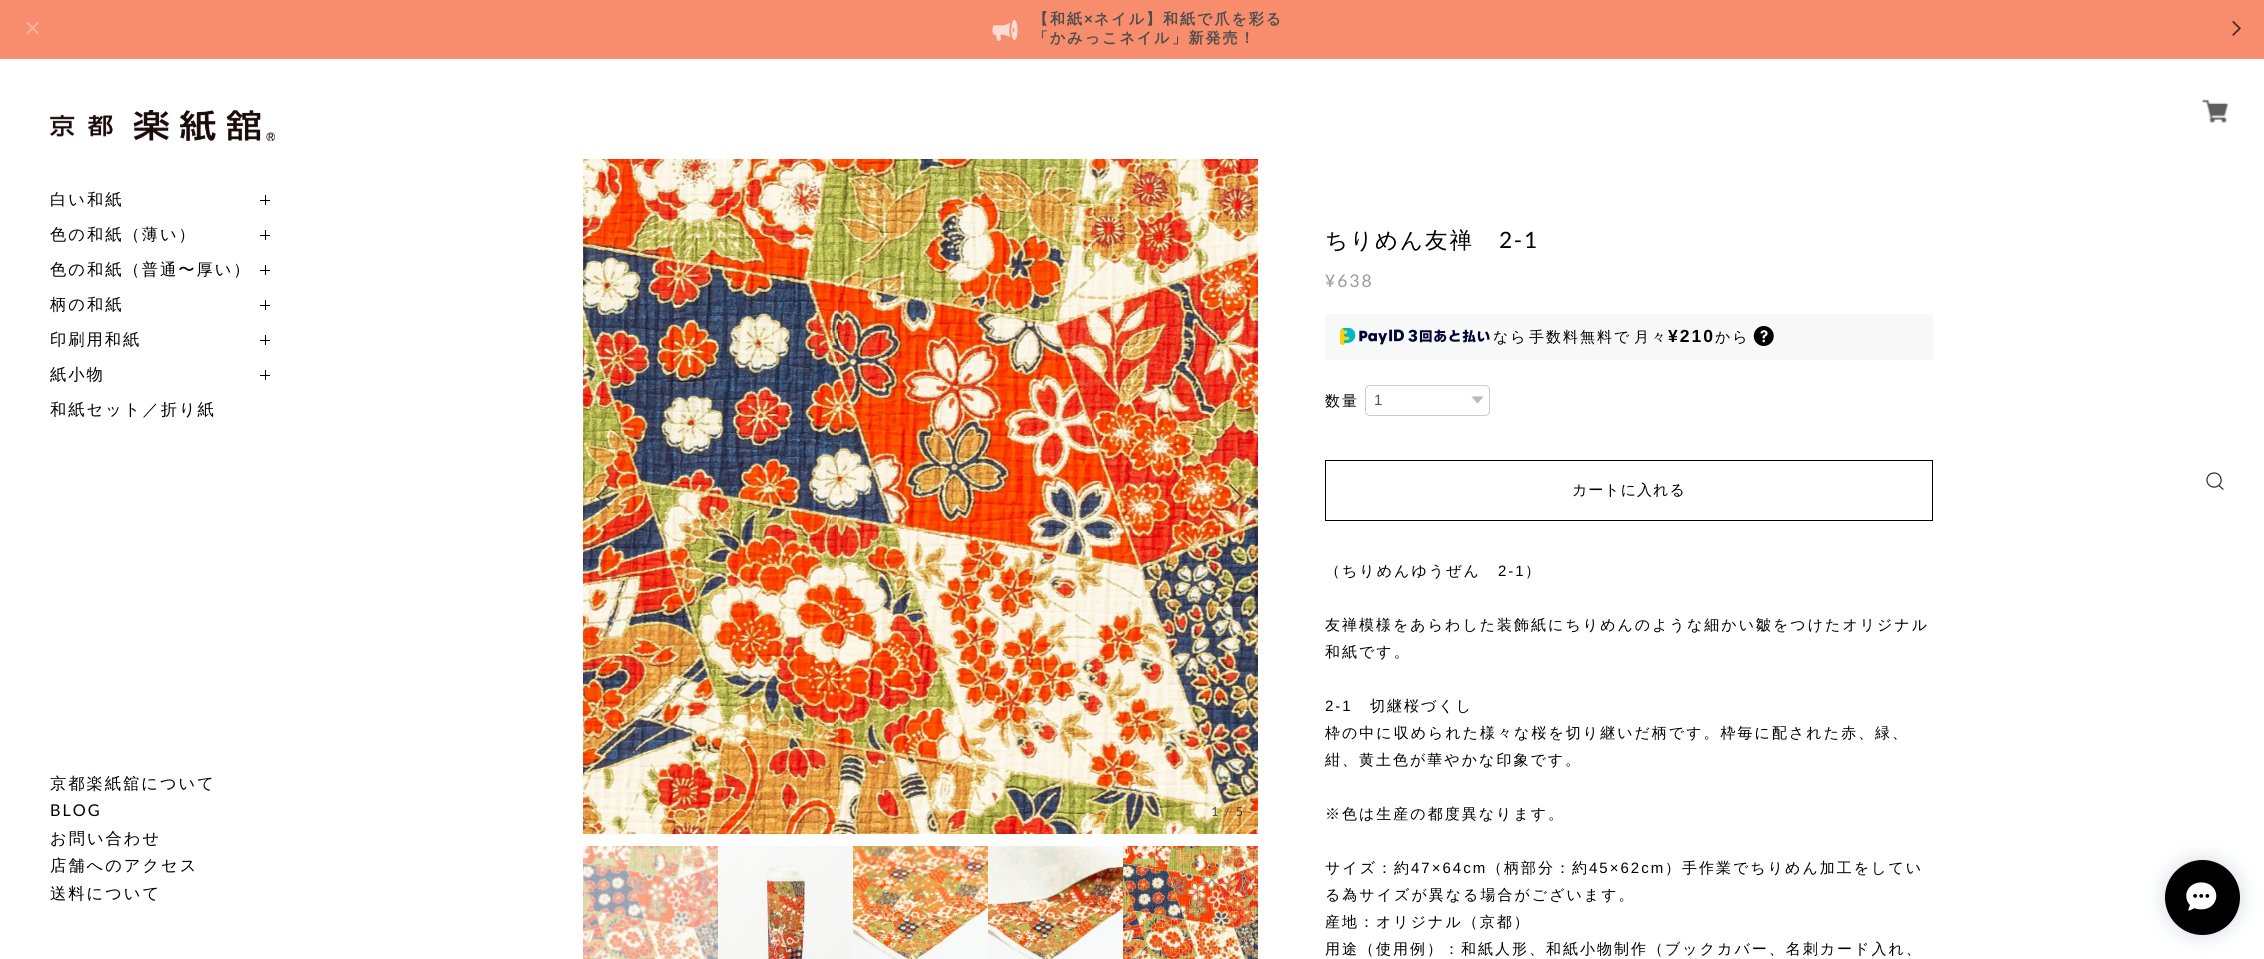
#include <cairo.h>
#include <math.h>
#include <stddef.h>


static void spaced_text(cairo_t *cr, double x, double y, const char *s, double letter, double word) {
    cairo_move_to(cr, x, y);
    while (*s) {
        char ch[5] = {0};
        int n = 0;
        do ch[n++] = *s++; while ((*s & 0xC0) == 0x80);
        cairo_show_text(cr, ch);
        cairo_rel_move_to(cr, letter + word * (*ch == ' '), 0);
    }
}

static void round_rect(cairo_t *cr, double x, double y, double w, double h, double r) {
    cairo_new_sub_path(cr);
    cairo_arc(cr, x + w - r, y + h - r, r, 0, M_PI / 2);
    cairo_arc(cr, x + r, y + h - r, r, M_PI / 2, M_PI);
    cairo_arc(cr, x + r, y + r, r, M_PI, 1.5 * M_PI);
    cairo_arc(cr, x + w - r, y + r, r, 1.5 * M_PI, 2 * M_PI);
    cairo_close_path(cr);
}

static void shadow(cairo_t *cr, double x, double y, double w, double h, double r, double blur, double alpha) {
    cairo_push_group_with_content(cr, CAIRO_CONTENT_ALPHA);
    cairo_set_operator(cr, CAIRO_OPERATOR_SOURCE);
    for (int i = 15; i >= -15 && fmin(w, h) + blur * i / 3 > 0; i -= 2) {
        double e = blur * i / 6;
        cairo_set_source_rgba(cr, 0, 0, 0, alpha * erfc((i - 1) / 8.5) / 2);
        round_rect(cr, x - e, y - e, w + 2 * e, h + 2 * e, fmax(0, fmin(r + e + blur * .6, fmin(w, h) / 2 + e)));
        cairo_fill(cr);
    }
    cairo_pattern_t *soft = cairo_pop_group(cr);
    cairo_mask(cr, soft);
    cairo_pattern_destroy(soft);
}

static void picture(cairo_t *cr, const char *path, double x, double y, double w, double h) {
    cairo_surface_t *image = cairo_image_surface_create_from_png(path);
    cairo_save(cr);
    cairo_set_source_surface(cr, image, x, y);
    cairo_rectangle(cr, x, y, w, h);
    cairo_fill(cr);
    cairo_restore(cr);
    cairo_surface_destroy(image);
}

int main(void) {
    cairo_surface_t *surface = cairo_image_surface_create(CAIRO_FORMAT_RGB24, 2264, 959);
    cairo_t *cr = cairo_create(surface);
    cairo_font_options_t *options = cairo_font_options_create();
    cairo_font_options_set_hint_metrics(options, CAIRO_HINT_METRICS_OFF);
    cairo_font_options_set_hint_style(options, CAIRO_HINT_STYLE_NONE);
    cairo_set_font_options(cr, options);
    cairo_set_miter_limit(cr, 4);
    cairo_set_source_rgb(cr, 1, 1, 1);
    cairo_paint(cr);
    cairo_set_source_rgb(cr, 0.969, 0.553, 0.431);
    cairo_rectangle(cr, 0, 0, 2264, 59);
    cairo_fill(cr);
    picture(cr, "img1.png", 26, 22, 13, 13);
    picture(cr, "img2.png", 992, 19, 26, 22);
    cairo_select_font_face(cr, "WenQuanYi Zen Hei", CAIRO_FONT_SLANT_NORMAL, CAIRO_FONT_WEIGHT_BOLD);
    cairo_set_font_size(cr, 15);
    cairo_set_source_rgb(cr, 0.302, 0.302, 0.302);
    spaced_text(cr, 1033, 24, "【和紙", 2, 0);
    cairo_select_font_face(cr, "Liberation Sans", CAIRO_FONT_SLANT_NORMAL, CAIRO_FONT_WEIGHT_BOLD);
    spaced_text(cr, 1084, 24, "×", 2, 0);
    cairo_select_font_face(cr, "WenQuanYi Zen Hei", CAIRO_FONT_SLANT_NORMAL, CAIRO_FONT_WEIGHT_BOLD);
    spaced_text(cr, 1094, 24, "ネイル】和紙で爪を彩る", 2, 0);
    spaced_text(cr, 1033, 43, "「かみっこネイル」新発売！", 2, 0);
    picture(cr, "img3.png", 2232, 20, 9, 16);
    picture(cr, "img4.png", 50, 110, 225, 31);
    cairo_select_font_face(cr, "WenQuanYi Zen Hei Medium", CAIRO_FONT_SLANT_NORMAL, CAIRO_FONT_WEIGHT_NORMAL);
    cairo_set_font_size(cr, 16.25);
    cairo_set_source_rgb(cr, 0, 0, 0);
    spaced_text(cr, 50, 205, "白い和紙", 2, 0);
    cairo_rectangle(cr, 260, 200, 10, 1);
    cairo_fill(cr);
    cairo_rectangle(cr, 265, 195, 1, 10);
    cairo_fill(cr);
    spaced_text(cr, 50, 240, "色の和紙（薄い）", 2, 0);
    cairo_rectangle(cr, 260, 235, 10, 1);
    cairo_fill(cr);
    cairo_rectangle(cr, 265, 230, 1, 10);
    cairo_fill(cr);
    spaced_text(cr, 50, 275, "色の和紙（普通〜厚い）", 2, 0);
    cairo_rectangle(cr, 260, 270, 10, 1);
    cairo_fill(cr);
    cairo_rectangle(cr, 265, 265, 1, 10);
    cairo_fill(cr);
    spaced_text(cr, 50, 310, "柄の和紙", 2, 0);
    cairo_rectangle(cr, 260, 305, 10, 1);
    cairo_fill(cr);
    cairo_rectangle(cr, 265, 300, 1, 10);
    cairo_fill(cr);
    spaced_text(cr, 50, 345, "印刷用和紙", 2, 0);
    cairo_rectangle(cr, 260, 340, 10, 1);
    cairo_fill(cr);
    cairo_rectangle(cr, 265, 335, 1, 10);
    cairo_fill(cr);
    spaced_text(cr, 50, 380, "紙小物", 2, 0);
    cairo_rectangle(cr, 260, 375, 10, 1);
    cairo_fill(cr);
    cairo_rectangle(cr, 265, 370, 1, 10);
    cairo_fill(cr);
    spaced_text(cr, 50, 415, "和紙セット／折り紙", 2, 0);
    spaced_text(cr, 50, 789, "京都楽紙舘について", 2, 0);
    cairo_select_font_face(cr, "Lato", CAIRO_FONT_SLANT_NORMAL, CAIRO_FONT_WEIGHT_NORMAL);
    spaced_text(cr, 50, 816, "BLOG", 2, 0);
    cairo_select_font_face(cr, "WenQuanYi Zen Hei Medium", CAIRO_FONT_SLANT_NORMAL, CAIRO_FONT_WEIGHT_NORMAL);
    spaced_text(cr, 50, 844, "お問い合わせ", 2, 0);
    spaced_text(cr, 50, 871, "店舗へのアクセス", 2, 0);
    spaced_text(cr, 50, 899, "送料について", 2, 0);
    picture(cr, "img5.png", 583, 159, 675, 675);
    cairo_set_source_rgb(cr, 0.267, 0.267, 0.267);
    cairo_new_path(cr);
    cairo_move_to(cr, 597.5, 495.5);
    cairo_line_to(cr, 609.5, 508);
    cairo_line_to(cr, 609, 509);
    cairo_line_to(cr, 596.5, 496.5);
    cairo_close_path(cr);
    cairo_fill(cr);
    cairo_new_path(cr);
    cairo_move_to(cr, 609, 484);
    cairo_line_to(cr, 609.5, 485);
    cairo_line_to(cr, 597.5, 497.5);
    cairo_line_to(cr, 596.5, 496.5);
    cairo_close_path(cr);
    cairo_fill(cr);
    cairo_new_path(cr);
    cairo_move_to(cr, 1230, 484);
    cairo_line_to(cr, 1242.5, 496.5);
    cairo_line_to(cr, 1241.5, 497.5);
    cairo_line_to(cr, 1229, 485);
    cairo_close_path(cr);
    cairo_fill(cr);
    cairo_new_path(cr);
    cairo_move_to(cr, 1241.5, 495.5);
    cairo_line_to(cr, 1242.5, 496.5);
    cairo_line_to(cr, 1230, 509);
    cairo_line_to(cr, 1229, 508);
    cairo_close_path(cr);
    cairo_fill(cr);
    cairo_select_font_face(cr, "Lato", CAIRO_FONT_SLANT_NORMAL, CAIRO_FONT_WEIGHT_NORMAL);
    cairo_set_font_size(cr, 12.5);
    spaced_text(cr, 1211, 816, "1 / 5", 2, 0);
    picture(cr, "img6.png", 583, 846, 135, 113);
    picture(cr, "img7.png", 718, 846, 135, 113);
    picture(cr, "img8.png", 853, 846, 135, 113);
    picture(cr, "img9.png", 988, 846, 135, 113);
    picture(cr, "img10.png", 1123, 846, 135, 113);
    cairo_select_font_face(cr, "WenQuanYi Zen Hei Medium", CAIRO_FONT_SLANT_NORMAL, CAIRO_FONT_WEIGHT_NORMAL);
    cairo_set_font_size(cr, 22.5);
    cairo_set_source_rgb(cr, 0, 0, 0);
    spaced_text(cr, 1325, 248, "ちりめん友禅", 2, 0);
    cairo_select_font_face(cr, "Lato", CAIRO_FONT_SLANT_NORMAL, CAIRO_FONT_WEIGHT_NORMAL);
    spaced_text(cr, 1499, 248, "2-1", 2, 0);
    cairo_set_font_size(cr, 17.5);
    cairo_set_source_rgb(cr, 0.6, 0.6, 0.6);
    spaced_text(cr, 1325, 287, "¥638", 2, 0);
    cairo_set_source_rgb(cr, 0.969, 0.969, 0.969);
    cairo_rectangle(cr, 1325, 314, 608, 46);
    cairo_fill(cr);
    picture(cr, "img11.png", 1340, 328, 150, 17);
    cairo_select_font_face(cr, "WenQuanYi Zen Hei Medium", CAIRO_FONT_SLANT_NORMAL, CAIRO_FONT_WEIGHT_NORMAL);
    cairo_set_font_size(cr, 15);
    cairo_set_source_rgb(cr, 0, 0, 0);
    spaced_text(cr, 1493, 342, "なら", 2, 0);
    spaced_text(cr, 1529, 342, "手数料無料で", 2, 0);
    spaced_text(cr, 1634, 342, "月々", 2, 0);
    cairo_select_font_face(cr, "Liberation Sans", CAIRO_FONT_SLANT_NORMAL, CAIRO_FONT_WEIGHT_BOLD);
    cairo_set_font_size(cr, 17.5);
    spaced_text(cr, 1668, 342, "¥210", 2, 0);
    cairo_select_font_face(cr, "WenQuanYi Zen Hei Medium", CAIRO_FONT_SLANT_NORMAL, CAIRO_FONT_WEIGHT_NORMAL);
    cairo_set_font_size(cr, 15);
    spaced_text(cr, 1715, 342, "から", 2, 0);
    picture(cr, "img12.png", 1753, 326, 21, 20);
    spaced_text(cr, 1325, 406, "数量", 2, 0);
    picture(cr, "img13.png", 1471, 396, 13, 8);
    round_rect(cr, 1365.5, 385.5, 124, 30, 4.5);
    cairo_set_source_rgb(cr, 0.8, 0.8, 0.8);
    cairo_set_line_width(cr, 1);
    cairo_stroke(cr);
    cairo_select_font_face(cr, "Liberation Sans", CAIRO_FONT_SLANT_NORMAL, CAIRO_FONT_WEIGHT_NORMAL);
    cairo_set_source_rgb(cr, 0.333, 0.333, 0.333);
    cairo_move_to(cr, 1374, 405);
    cairo_show_text(cr, "1");
    cairo_rectangle(cr, 1325.5, 460.5, 607, 60);
    cairo_set_source_rgb(cr, 0, 0, 0);
    cairo_stroke(cr);
    cairo_select_font_face(cr, "WenQuanYi Zen Hei Medium", CAIRO_FONT_SLANT_NORMAL, CAIRO_FONT_WEIGHT_NORMAL);
    spaced_text(cr, 1572, 495, "カートに入れる", 1, 0);
    spaced_text(cr, 1325, 576, "（ちりめんゆうぜん", 2, 0);
    cairo_select_font_face(cr, "Liberation Sans", CAIRO_FONT_SLANT_NORMAL, CAIRO_FONT_WEIGHT_NORMAL);
    spaced_text(cr, 1498, 576, "2-1", 2, 0);
    cairo_select_font_face(cr, "WenQuanYi Zen Hei Medium", CAIRO_FONT_SLANT_NORMAL, CAIRO_FONT_WEIGHT_NORMAL);
    spaced_text(cr, 1525, 576, "）", 2, 0);
    spaced_text(cr, 1325, 630, "友禅模様をあらわした装飾紙にちりめんのような細かい皺をつけたオリジナル", 2, 0);
    spaced_text(cr, 1325, 657, "和紙です。", 2, 0);
    cairo_select_font_face(cr, "Liberation Sans", CAIRO_FONT_SLANT_NORMAL, CAIRO_FONT_WEIGHT_NORMAL);
    spaced_text(cr, 1325, 711, "2-1", 2, 0);
    cairo_select_font_face(cr, "WenQuanYi Zen Hei Medium", CAIRO_FONT_SLANT_NORMAL, CAIRO_FONT_WEIGHT_NORMAL);
    spaced_text(cr, 1370, 711, "切継桜づくし", 2, 0);
    spaced_text(cr, 1325, 738, "枠の中に収められた様々な桜を切り継いだ柄です。枠毎に配された赤、緑、", 2, 0);
    spaced_text(cr, 1325, 765, "紺、黄土色が華やかな印象です。", 2, 0);
    spaced_text(cr, 1325, 819, "※色は生産の都度異なります。", 2, 0);
    spaced_text(cr, 1325, 873, "サイズ：約", 2, 0);
    cairo_select_font_face(cr, "Liberation Sans", CAIRO_FONT_SLANT_NORMAL, CAIRO_FONT_WEIGHT_NORMAL);
    spaced_text(cr, 1411, 873, "47×64cm", 2, 0);
    cairo_select_font_face(cr, "WenQuanYi Zen Hei Medium", CAIRO_FONT_SLANT_NORMAL, CAIRO_FONT_WEIGHT_NORMAL);
    spaced_text(cr, 1487, 873, "（柄部分：約", 2, 0);
    cairo_select_font_face(cr, "Liberation Sans", CAIRO_FONT_SLANT_NORMAL, CAIRO_FONT_WEIGHT_NORMAL);
    spaced_text(cr, 1589, 873, "45×62cm", 2, 0);
    cairo_select_font_face(cr, "WenQuanYi Zen Hei Medium", CAIRO_FONT_SLANT_NORMAL, CAIRO_FONT_WEIGHT_NORMAL);
    spaced_text(cr, 1665, 873, "）手作業でちりめん加工をしてい", 2, 0);
    spaced_text(cr, 1325, 900, "る為サイズが異なる場合がございます。", 2, 0);
    spaced_text(cr, 1325, 927, "産地：オリジナル（京都）", 2, 0);
    spaced_text(cr, 1325, 954, "用途（使用例）：和紙人形、和紙小物制作（ブックカバー、名刺カード入れ、", 2, 0);
    picture(cr, "img14.png", 2202, 99, 26, 25);
    picture(cr, "img15.png", 2206, 472, 18, 18);
    cairo_set_source_rgb(cr, 0.2, 0.259, 0.345);
    shadow(cr, 2165, 860, 75, 75, 37.5, 9.5, 0.2);
    cairo_set_source_rgb(cr, 0, 0, 0);
    cairo_arc(cr, 2202.5, 897.5, 37.5, 0, 2 * M_PI);
    cairo_fill(cr);
    picture(cr, "img16.png", 2186, 882, 31, 29);
    cairo_surface_write_to_png(surface, "page.png");
    cairo_font_options_destroy(options);
    cairo_destroy(cr);
    cairo_surface_destroy(surface);
    return 0;
}
